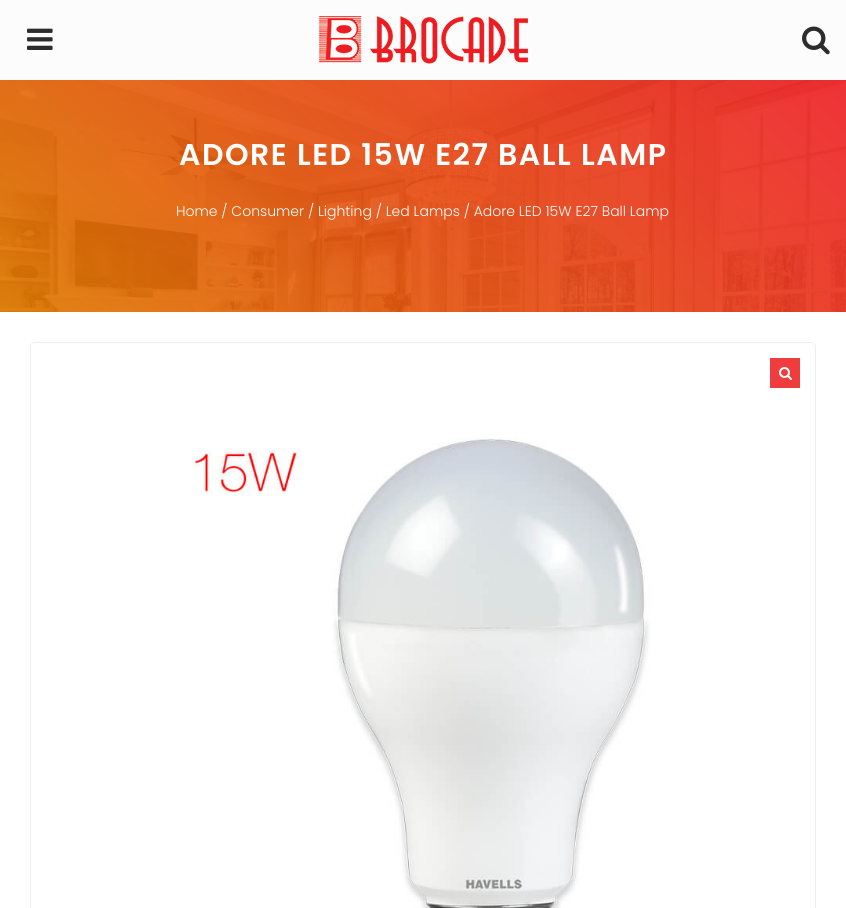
#include <cairo.h>
#include <math.h>
#include <stddef.h>


static void spaced_text(cairo_t *cr, double x, double y, const char *s, double letter, double word) {
    cairo_move_to(cr, x, y);
    while (*s) {
        char ch[5] = {0};
        int n = 0;
        do ch[n++] = *s++; while ((*s & 0xC0) == 0x80);
        cairo_show_text(cr, ch);
        cairo_rel_move_to(cr, letter + word * (*ch == ' '), 0);
    }
}

static void round_rect(cairo_t *cr, double x, double y, double w, double h, double r) {
    cairo_new_sub_path(cr);
    cairo_arc(cr, x + w - r, y + h - r, r, 0, M_PI / 2);
    cairo_arc(cr, x + r, y + h - r, r, M_PI / 2, M_PI);
    cairo_arc(cr, x + r, y + r, r, M_PI, 1.5 * M_PI);
    cairo_arc(cr, x + w - r, y + r, r, 1.5 * M_PI, 2 * M_PI);
    cairo_close_path(cr);
}

static void picture(cairo_t *cr, const char *path, double x, double y, double w, double h) {
    cairo_surface_t *image = cairo_image_surface_create_from_png(path);
    cairo_save(cr);
    cairo_set_source_surface(cr, image, x, y);
    cairo_rectangle(cr, x, y, w, h);
    cairo_fill(cr);
    cairo_restore(cr);
    cairo_surface_destroy(image);
}

int main(void) {
    cairo_surface_t *surface = cairo_image_surface_create(CAIRO_FORMAT_RGB24, 846, 908);
    cairo_t *cr = cairo_create(surface);
    cairo_font_options_t *options = cairo_font_options_create();
    cairo_font_options_set_hint_metrics(options, CAIRO_HINT_METRICS_OFF);
    cairo_font_options_set_hint_style(options, CAIRO_HINT_STYLE_NONE);
    cairo_set_font_options(cr, options);
    cairo_set_miter_limit(cr, 4);
    cairo_set_source_rgb(cr, 1, 1, 1);
    cairo_paint(cr);
    cairo_set_source_rgb(cr, 0.988, 0.988, 0.988);
    cairo_rectangle(cr, 0, 0, 846, 80);
    cairo_fill(cr);
    picture(cr, "img1.png", 319, 16, 209, 48);
    picture(cr, "img2.png", 27, 28, 26, 22);
    picture(cr, "img3.png", 802, 26, 28, 29);
    picture(cr, "img4.png", 0, 80, 846, 232);
    cairo_select_font_face(cr, "Poppins SemiBold", CAIRO_FONT_SLANT_NORMAL, CAIRO_FONT_WEIGHT_NORMAL);
    cairo_set_font_size(cr, 30);
    cairo_set_source_rgb(cr, 1, 1, 1);
    spaced_text(cr, 179, 165, "ADORE LED 15W E27 BALL LAMP", 1.5, 0);
    cairo_select_font_face(cr, "Poppins Light", CAIRO_FONT_SLANT_NORMAL, CAIRO_FONT_WEIGHT_NORMAL);
    cairo_set_font_size(cr, 14);
    cairo_move_to(cr, 176, 216);
    cairo_show_text(cr, "Home / Consumer / Lighting / Led Lamps / Adore LED 15W E27 Ball Lamp");
    round_rect(cr, 30.5, 342.5, 785, 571, 4.5);
    cairo_set_source_rgb(cr, 0.933, 0.933, 0.933);
    cairo_set_line_width(cr, 1);
    cairo_stroke(cr);
    picture(cr, "img5.png", 31, 343, 784, 565);
    cairo_set_source_rgb(cr, 0.937, 0.235, 0.239);
    cairo_rectangle(cr, 770, 358, 30, 30);
    cairo_fill(cr);
    picture(cr, "img6.png", 779, 367, 13, 13);
    cairo_surface_write_to_png(surface, "page.png");
    cairo_font_options_destroy(options);
    cairo_destroy(cr);
    cairo_surface_destroy(surface);
    return 0;
}
